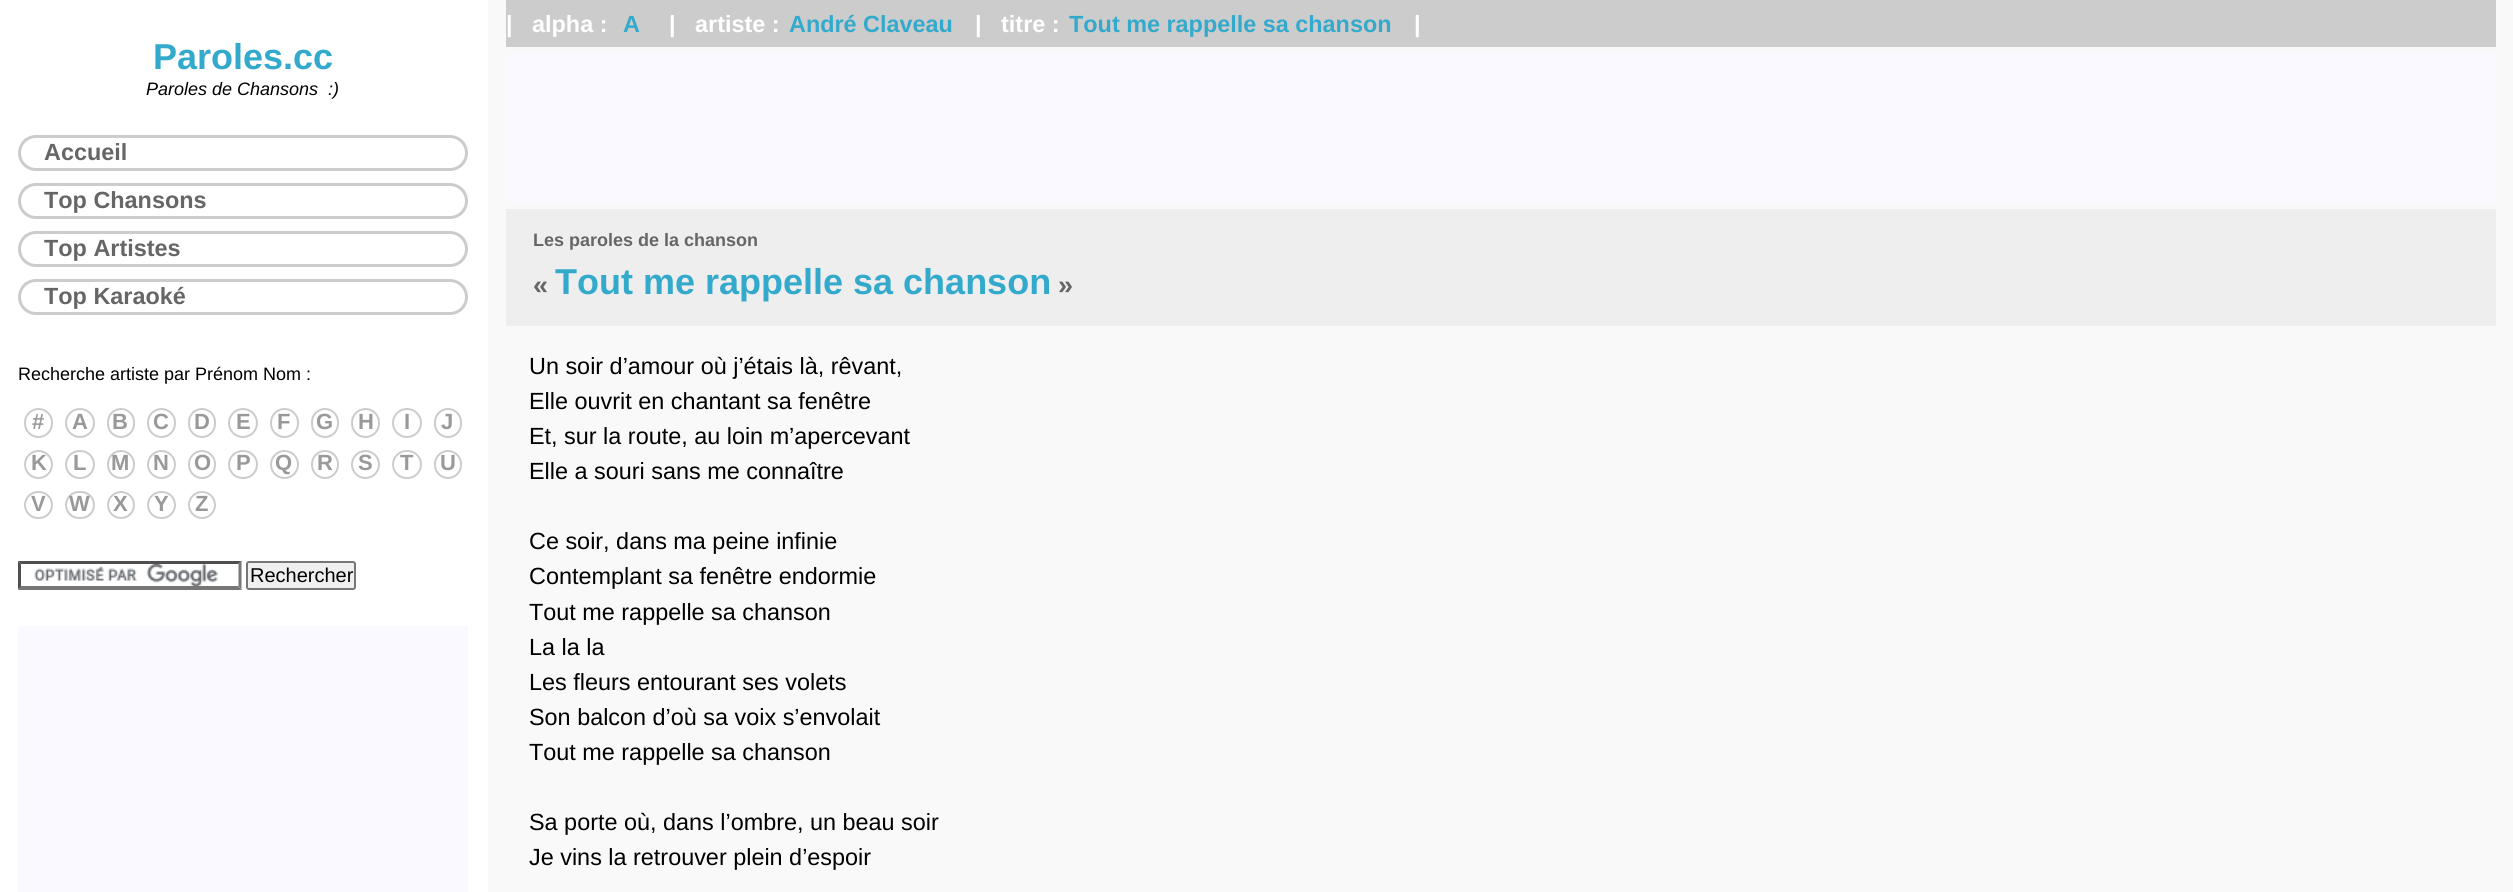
#include <cairo.h>
#include <math.h>
#include <stddef.h>


static void round_rect(cairo_t *cr, double x, double y, double w, double h, double r) {
    cairo_new_sub_path(cr);
    cairo_arc(cr, x + w - r, y + h - r, r, 0, M_PI / 2);
    cairo_arc(cr, x + r, y + h - r, r, M_PI / 2, M_PI);
    cairo_arc(cr, x + r, y + r, r, M_PI, 1.5 * M_PI);
    cairo_arc(cr, x + w - r, y + r, r, 1.5 * M_PI, 2 * M_PI);
    cairo_close_path(cr);
}

static void picture(cairo_t *cr, const char *path, double x, double y, double w, double h) {
    cairo_surface_t *image = cairo_image_surface_create_from_png(path);
    cairo_save(cr);
    cairo_set_source_surface(cr, image, x, y);
    cairo_rectangle(cr, x, y, w, h);
    cairo_fill(cr);
    cairo_restore(cr);
    cairo_surface_destroy(image);
}

int main(void) {
    cairo_surface_t *surface = cairo_image_surface_create(CAIRO_FORMAT_RGB24, 2513, 892);
    cairo_t *cr = cairo_create(surface);
    cairo_font_options_t *options = cairo_font_options_create();
    cairo_font_options_set_hint_metrics(options, CAIRO_HINT_METRICS_OFF);
    cairo_font_options_set_hint_style(options, CAIRO_HINT_STYLE_NONE);
    cairo_set_font_options(cr, options);
    cairo_set_miter_limit(cr, 4);
    cairo_set_source_rgb(cr, 1, 1, 1);
    cairo_paint(cr);
    cairo_select_font_face(cr, "Liberation Sans", CAIRO_FONT_SLANT_NORMAL, CAIRO_FONT_WEIGHT_BOLD);
    cairo_set_font_size(cr, 36);
    cairo_set_source_rgb(cr, 0.2, 0.667, 0.8);
    cairo_move_to(cr, 153, 69);
    cairo_show_text(cr, "Paroles.cc");
    cairo_select_font_face(cr, "Liberation Sans", CAIRO_FONT_SLANT_ITALIC, CAIRO_FONT_WEIGHT_NORMAL);
    cairo_set_font_size(cr, 18);
    cairo_set_source_rgb(cr, 0, 0, 0);
    cairo_move_to(cr, 146, 95);
    cairo_show_text(cr, "Paroles de Chansons  :)");
    round_rect(cr, 19.5, 136.5, 447, 33, 16.5);
    cairo_set_source_rgb(cr, 0.8, 0.8, 0.8);
    cairo_set_line_width(cr, 3);
    cairo_stroke(cr);
    cairo_select_font_face(cr, "Liberation Sans", CAIRO_FONT_SLANT_NORMAL, CAIRO_FONT_WEIGHT_BOLD);
    cairo_set_font_size(cr, 23.4);
    cairo_set_source_rgb(cr, 0.4, 0.4, 0.4);
    cairo_move_to(cr, 44, 160);
    cairo_show_text(cr, "Accueil");
    round_rect(cr, 19.5, 184.5, 447, 33, 16.5);
    cairo_set_source_rgb(cr, 0.8, 0.8, 0.8);
    cairo_stroke(cr);
    cairo_set_source_rgb(cr, 0.4, 0.4, 0.4);
    cairo_move_to(cr, 44, 208);
    cairo_show_text(cr, "Top Chansons");
    round_rect(cr, 19.5, 232.5, 447, 33, 16.5);
    cairo_set_source_rgb(cr, 0.8, 0.8, 0.8);
    cairo_stroke(cr);
    cairo_set_source_rgb(cr, 0.4, 0.4, 0.4);
    cairo_move_to(cr, 44, 256);
    cairo_show_text(cr, "Top Artistes");
    round_rect(cr, 19.5, 280.5, 447, 33, 16.5);
    cairo_set_source_rgb(cr, 0.8, 0.8, 0.8);
    cairo_stroke(cr);
    cairo_set_source_rgb(cr, 0.4, 0.4, 0.4);
    cairo_move_to(cr, 44, 304);
    cairo_show_text(cr, "Top Karaoké");
    cairo_select_font_face(cr, "Liberation Sans", CAIRO_FONT_SLANT_NORMAL, CAIRO_FONT_WEIGHT_NORMAL);
    cairo_set_font_size(cr, 18);
    cairo_set_source_rgb(cr, 0, 0, 0);
    cairo_move_to(cr, 18, 380);
    cairo_show_text(cr, "Recherche artiste par Prénom Nom :");
    round_rect(cr, 25, 409, 27, 28, 13.5);
    cairo_set_source_rgb(cr, 0.8, 0.8, 0.8);
    cairo_set_line_width(cr, 2);
    cairo_stroke(cr);
    cairo_select_font_face(cr, "Liberation Sans", CAIRO_FONT_SLANT_NORMAL, CAIRO_FONT_WEIGHT_BOLD);
    cairo_set_font_size(cr, 22);
    cairo_set_source_rgb(cr, 0.6, 0.6, 0.6);
    cairo_move_to(cr, 32, 429);
    cairo_show_text(cr, "#");
    cairo_new_path(cr);
    cairo_arc(cr, 80, 423, 14, 0, 2 * M_PI);
    cairo_set_source_rgb(cr, 0.8, 0.8, 0.8);
    cairo_stroke(cr);
    cairo_set_source_rgb(cr, 0.6, 0.6, 0.6);
    cairo_move_to(cr, 72, 429);
    cairo_show_text(cr, "A");
    round_rect(cr, 108, 409, 26, 28, 13);
    cairo_set_source_rgb(cr, 0.8, 0.8, 0.8);
    cairo_stroke(cr);
    cairo_set_source_rgb(cr, 0.6, 0.6, 0.6);
    cairo_move_to(cr, 112, 429);
    cairo_show_text(cr, "B");
    round_rect(cr, 148, 409, 27, 28, 13.5);
    cairo_set_source_rgb(cr, 0.8, 0.8, 0.8);
    cairo_stroke(cr);
    cairo_set_source_rgb(cr, 0.6, 0.6, 0.6);
    cairo_move_to(cr, 153, 429);
    cairo_show_text(cr, "C");
    round_rect(cr, 189, 409, 26, 28, 13);
    cairo_set_source_rgb(cr, 0.8, 0.8, 0.8);
    cairo_stroke(cr);
    cairo_set_source_rgb(cr, 0.6, 0.6, 0.6);
    cairo_move_to(cr, 194, 429);
    cairo_show_text(cr, "D");
    cairo_new_path(cr);
    cairo_arc(cr, 243, 423, 14, 0, 2 * M_PI);
    cairo_set_source_rgb(cr, 0.8, 0.8, 0.8);
    cairo_stroke(cr);
    cairo_set_source_rgb(cr, 0.6, 0.6, 0.6);
    cairo_move_to(cr, 236, 429);
    cairo_show_text(cr, "E");
    round_rect(cr, 271, 409, 27, 28, 13.5);
    cairo_set_source_rgb(cr, 0.8, 0.8, 0.8);
    cairo_stroke(cr);
    cairo_set_source_rgb(cr, 0.6, 0.6, 0.6);
    cairo_move_to(cr, 277, 429);
    cairo_show_text(cr, "F");
    round_rect(cr, 312, 409, 26, 28, 13);
    cairo_set_source_rgb(cr, 0.8, 0.8, 0.8);
    cairo_stroke(cr);
    cairo_set_source_rgb(cr, 0.6, 0.6, 0.6);
    cairo_move_to(cr, 316, 429);
    cairo_show_text(cr, "G");
    round_rect(cr, 352, 409, 27, 28, 13.5);
    cairo_set_source_rgb(cr, 0.8, 0.8, 0.8);
    cairo_stroke(cr);
    cairo_set_source_rgb(cr, 0.6, 0.6, 0.6);
    cairo_move_to(cr, 358, 429);
    cairo_show_text(cr, "H");
    cairo_new_path(cr);
    cairo_arc(cr, 407, 423, 14, 0, 2 * M_PI);
    cairo_set_source_rgb(cr, 0.8, 0.8, 0.8);
    cairo_stroke(cr);
    cairo_set_source_rgb(cr, 0.6, 0.6, 0.6);
    cairo_move_to(cr, 404, 429);
    cairo_show_text(cr, "I");
    round_rect(cr, 435, 409, 26, 28, 13);
    cairo_set_source_rgb(cr, 0.8, 0.8, 0.8);
    cairo_stroke(cr);
    cairo_set_source_rgb(cr, 0.6, 0.6, 0.6);
    cairo_move_to(cr, 441, 429);
    cairo_show_text(cr, "J");
    cairo_new_path(cr);
    cairo_arc(cr, 38.5, 464.5, 13.5, 0, 2 * M_PI);
    cairo_set_source_rgb(cr, 0.8, 0.8, 0.8);
    cairo_stroke(cr);
    cairo_set_source_rgb(cr, 0.6, 0.6, 0.6);
    cairo_move_to(cr, 31, 470);
    cairo_show_text(cr, "K");
    round_rect(cr, 66, 451, 28, 27, 13.5);
    cairo_set_source_rgb(cr, 0.8, 0.8, 0.8);
    cairo_stroke(cr);
    cairo_set_source_rgb(cr, 0.6, 0.6, 0.6);
    cairo_move_to(cr, 73, 470);
    cairo_show_text(cr, "L");
    round_rect(cr, 108, 451, 26, 27, 13);
    cairo_set_source_rgb(cr, 0.8, 0.8, 0.8);
    cairo_stroke(cr);
    cairo_set_source_rgb(cr, 0.6, 0.6, 0.6);
    cairo_move_to(cr, 111, 470);
    cairo_show_text(cr, "M");
    cairo_new_path(cr);
    cairo_arc(cr, 161.5, 464.5, 13.5, 0, 2 * M_PI);
    cairo_set_source_rgb(cr, 0.8, 0.8, 0.8);
    cairo_stroke(cr);
    cairo_set_source_rgb(cr, 0.6, 0.6, 0.6);
    cairo_move_to(cr, 153, 470);
    cairo_show_text(cr, "N");
    round_rect(cr, 189, 451, 26, 27, 13);
    cairo_set_source_rgb(cr, 0.8, 0.8, 0.8);
    cairo_stroke(cr);
    cairo_set_source_rgb(cr, 0.6, 0.6, 0.6);
    cairo_move_to(cr, 194, 470);
    cairo_show_text(cr, "O");
    round_rect(cr, 229, 451, 28, 27, 13.5);
    cairo_set_source_rgb(cr, 0.8, 0.8, 0.8);
    cairo_stroke(cr);
    cairo_set_source_rgb(cr, 0.6, 0.6, 0.6);
    cairo_move_to(cr, 236, 470);
    cairo_show_text(cr, "P");
    cairo_new_path(cr);
    cairo_arc(cr, 284.5, 464.5, 13.5, 0, 2 * M_PI);
    cairo_set_source_rgb(cr, 0.8, 0.8, 0.8);
    cairo_stroke(cr);
    cairo_set_source_rgb(cr, 0.6, 0.6, 0.6);
    cairo_move_to(cr, 275, 470);
    cairo_show_text(cr, "Q");
    round_rect(cr, 312, 451, 26, 27, 13);
    cairo_set_source_rgb(cr, 0.8, 0.8, 0.8);
    cairo_stroke(cr);
    cairo_set_source_rgb(cr, 0.6, 0.6, 0.6);
    cairo_move_to(cr, 317, 470);
    cairo_show_text(cr, "R");
    cairo_new_path(cr);
    cairo_arc(cr, 365.5, 464.5, 13.5, 0, 2 * M_PI);
    cairo_set_source_rgb(cr, 0.8, 0.8, 0.8);
    cairo_stroke(cr);
    cairo_set_source_rgb(cr, 0.6, 0.6, 0.6);
    cairo_move_to(cr, 358, 470);
    cairo_show_text(cr, "S");
    round_rect(cr, 393, 451, 28, 27, 13.5);
    cairo_set_source_rgb(cr, 0.8, 0.8, 0.8);
    cairo_stroke(cr);
    cairo_set_source_rgb(cr, 0.6, 0.6, 0.6);
    cairo_move_to(cr, 400, 470);
    cairo_show_text(cr, "T");
    round_rect(cr, 435, 451, 26, 27, 13);
    cairo_set_source_rgb(cr, 0.8, 0.8, 0.8);
    cairo_stroke(cr);
    cairo_set_source_rgb(cr, 0.6, 0.6, 0.6);
    cairo_move_to(cr, 440, 470);
    cairo_show_text(cr, "U");
    round_rect(cr, 25, 492, 27, 26, 13);
    cairo_set_source_rgb(cr, 0.8, 0.8, 0.8);
    cairo_stroke(cr);
    cairo_set_source_rgb(cr, 0.6, 0.6, 0.6);
    cairo_move_to(cr, 31, 511);
    cairo_show_text(cr, "V");
    round_rect(cr, 66, 492, 28, 26, 13);
    cairo_set_source_rgb(cr, 0.8, 0.8, 0.8);
    cairo_stroke(cr);
    cairo_set_source_rgb(cr, 0.6, 0.6, 0.6);
    cairo_move_to(cr, 69, 511);
    cairo_show_text(cr, "W");
    cairo_new_path(cr);
    cairo_arc(cr, 121, 505, 13, 0, 2 * M_PI);
    cairo_set_source_rgb(cr, 0.8, 0.8, 0.8);
    cairo_stroke(cr);
    cairo_set_source_rgb(cr, 0.6, 0.6, 0.6);
    cairo_move_to(cr, 113, 511);
    cairo_show_text(cr, "X");
    round_rect(cr, 148, 492, 27, 26, 13);
    cairo_set_source_rgb(cr, 0.8, 0.8, 0.8);
    cairo_stroke(cr);
    cairo_set_source_rgb(cr, 0.6, 0.6, 0.6);
    cairo_move_to(cr, 154, 511);
    cairo_show_text(cr, "Y");
    cairo_new_path(cr);
    cairo_arc(cr, 202, 505, 13, 0, 2 * M_PI);
    cairo_set_source_rgb(cr, 0.8, 0.8, 0.8);
    cairo_stroke(cr);
    cairo_set_source_rgb(cr, 0.6, 0.6, 0.6);
    cairo_move_to(cr, 195, 511);
    cairo_show_text(cr, "Z");
    picture(cr, "img1.png", 34, 564, 184, 22);
    cairo_set_source_rgb(cr, 0.31, 0.31, 0.31);
    cairo_new_path(cr);
    cairo_move_to(cr, 18, 561);
    cairo_line_to(cr, 242, 561);
    cairo_line_to(cr, 238, 564);
    cairo_line_to(cr, 21, 564);
    cairo_close_path(cr);
    cairo_fill(cr);
    cairo_set_source_rgb(cr, 0.463, 0.463, 0.463);
    cairo_new_path(cr);
    cairo_move_to(cr, 241.5, 561);
    cairo_line_to(cr, 241.5, 589.5);
    cairo_line_to(cr, 238.5, 586.5);
    cairo_line_to(cr, 238.5, 564);
    cairo_close_path(cr);
    cairo_fill(cr);
    cairo_new_path(cr);
    cairo_move_to(cr, 242, 590);
    cairo_line_to(cr, 18, 590);
    cairo_line_to(cr, 21, 586);
    cairo_line_to(cr, 238, 586);
    cairo_close_path(cr);
    cairo_fill(cr);
    cairo_set_source_rgb(cr, 0.31, 0.31, 0.31);
    cairo_new_path(cr);
    cairo_move_to(cr, 18, 589.5);
    cairo_line_to(cr, 18, 561);
    cairo_line_to(cr, 21, 564);
    cairo_line_to(cr, 21, 586.5);
    cairo_close_path(cr);
    cairo_fill(cr);
    cairo_set_source_rgb(cr, 0.937, 0.937, 0.937);
    round_rect(cr, 247, 562, 108, 27, 2);
    cairo_fill_preserve(cr);
    cairo_set_source_rgb(cr, 0.463, 0.463, 0.463);
    cairo_stroke(cr);
    cairo_select_font_face(cr, "Liberation Sans", CAIRO_FONT_SLANT_NORMAL, CAIRO_FONT_WEIGHT_NORMAL);
    cairo_set_font_size(cr, 20);
    cairo_set_source_rgb(cr, 0, 0, 0);
    cairo_move_to(cr, 250, 582);
    cairo_show_text(cr, "Rechercher");
    cairo_set_source_rgb(cr, 0.973, 0.973, 1);
    cairo_rectangle(cr, 18, 626, 450, 266);
    cairo_fill(cr);
    cairo_set_source_rgb(cr, 0.973, 0.973, 0.973);
    cairo_rectangle(cr, 488, 0, 2025, 892);
    cairo_fill(cr);
    cairo_set_source_rgb(cr, 0.8, 0.8, 0.8);
    cairo_rectangle(cr, 506, 0, 1990, 47);
    cairo_fill(cr);
    cairo_select_font_face(cr, "Liberation Sans", CAIRO_FONT_SLANT_NORMAL, CAIRO_FONT_WEIGHT_BOLD);
    cairo_set_font_size(cr, 23.4);
    cairo_set_source_rgb(cr, 1, 1, 1);
    cairo_move_to(cr, 506, 32);
    cairo_show_text(cr, "|   alpha :");
    cairo_set_source_rgb(cr, 0.2, 0.667, 0.8);
    cairo_move_to(cr, 623, 32);
    cairo_show_text(cr, "A");
    cairo_set_source_rgb(cr, 1, 1, 1);
    cairo_move_to(cr, 669, 32);
    cairo_show_text(cr, "|   artiste :");
    cairo_set_source_rgb(cr, 0.2, 0.667, 0.8);
    cairo_move_to(cr, 789, 32);
    cairo_show_text(cr, "André Claveau");
    cairo_set_source_rgb(cr, 1, 1, 1);
    cairo_move_to(cr, 975, 32);
    cairo_show_text(cr, "|   titre :");
    cairo_set_source_rgb(cr, 0.2, 0.667, 0.8);
    cairo_move_to(cr, 1069, 32);
    cairo_show_text(cr, "Tout me rappelle sa chanson");
    cairo_set_source_rgb(cr, 1, 1, 1);
    cairo_move_to(cr, 1414, 32);
    cairo_show_text(cr, "|");
    cairo_set_source_rgb(cr, 0.973, 0.973, 1);
    cairo_rectangle(cr, 506, 53, 1990, 150);
    cairo_fill(cr);
    cairo_set_source_rgb(cr, 0.933, 0.933, 0.933);
    cairo_rectangle(cr, 506, 209, 1990, 117);
    cairo_fill(cr);
    cairo_set_font_size(cr, 18);
    cairo_set_source_rgb(cr, 0.4, 0.4, 0.4);
    cairo_move_to(cr, 533, 246);
    cairo_show_text(cr, "Les paroles de la chanson");
    cairo_set_font_size(cr, 27);
    cairo_move_to(cr, 533, 294);
    cairo_show_text(cr, "«");
    cairo_set_font_size(cr, 36);
    cairo_set_source_rgb(cr, 0.2, 0.667, 0.8);
    cairo_move_to(cr, 555, 294);
    cairo_show_text(cr, "Tout me rappelle sa chanson");
    cairo_set_font_size(cr, 27);
    cairo_set_source_rgb(cr, 0.4, 0.4, 0.4);
    cairo_move_to(cr, 1058, 294);
    cairo_show_text(cr, "»");
    cairo_select_font_face(cr, "Liberation Sans", CAIRO_FONT_SLANT_NORMAL, CAIRO_FONT_WEIGHT_NORMAL);
    cairo_set_font_size(cr, 23.4);
    cairo_set_source_rgb(cr, 0, 0, 0);
    cairo_move_to(cr, 529, 374);
    cairo_show_text(cr, "Un soir d’amour où j’étais là, rêvant,");
    cairo_move_to(cr, 529, 409);
    cairo_show_text(cr, "Elle ouvrit en chantant sa fenêtre");
    cairo_move_to(cr, 529, 444);
    cairo_show_text(cr, "Et, sur la route, au loin m’apercevant");
    cairo_move_to(cr, 529, 479);
    cairo_show_text(cr, "Elle a souri sans me connaître");
    cairo_move_to(cr, 529, 549);
    cairo_show_text(cr, "Ce soir, dans ma peine infinie");
    cairo_move_to(cr, 529, 584);
    cairo_show_text(cr, "Contemplant sa fenêtre endormie");
    cairo_move_to(cr, 529, 620);
    cairo_show_text(cr, "Tout me rappelle sa chanson");
    cairo_move_to(cr, 529, 655);
    cairo_show_text(cr, "La la la");
    cairo_move_to(cr, 529, 690);
    cairo_show_text(cr, "Les fleurs entourant ses volets");
    cairo_move_to(cr, 529, 725);
    cairo_show_text(cr, "Son balcon d’où sa voix s’envolait");
    cairo_move_to(cr, 529, 760);
    cairo_show_text(cr, "Tout me rappelle sa chanson");
    cairo_move_to(cr, 529, 830);
    cairo_show_text(cr, "Sa porte où, dans l’ombre, un beau soir");
    cairo_move_to(cr, 529, 865);
    cairo_show_text(cr, "Je vins la retrouver plein d’espoir");
    cairo_surface_write_to_png(surface, "page.png");
    cairo_font_options_destroy(options);
    cairo_destroy(cr);
    cairo_surface_destroy(surface);
    return 0;
}
